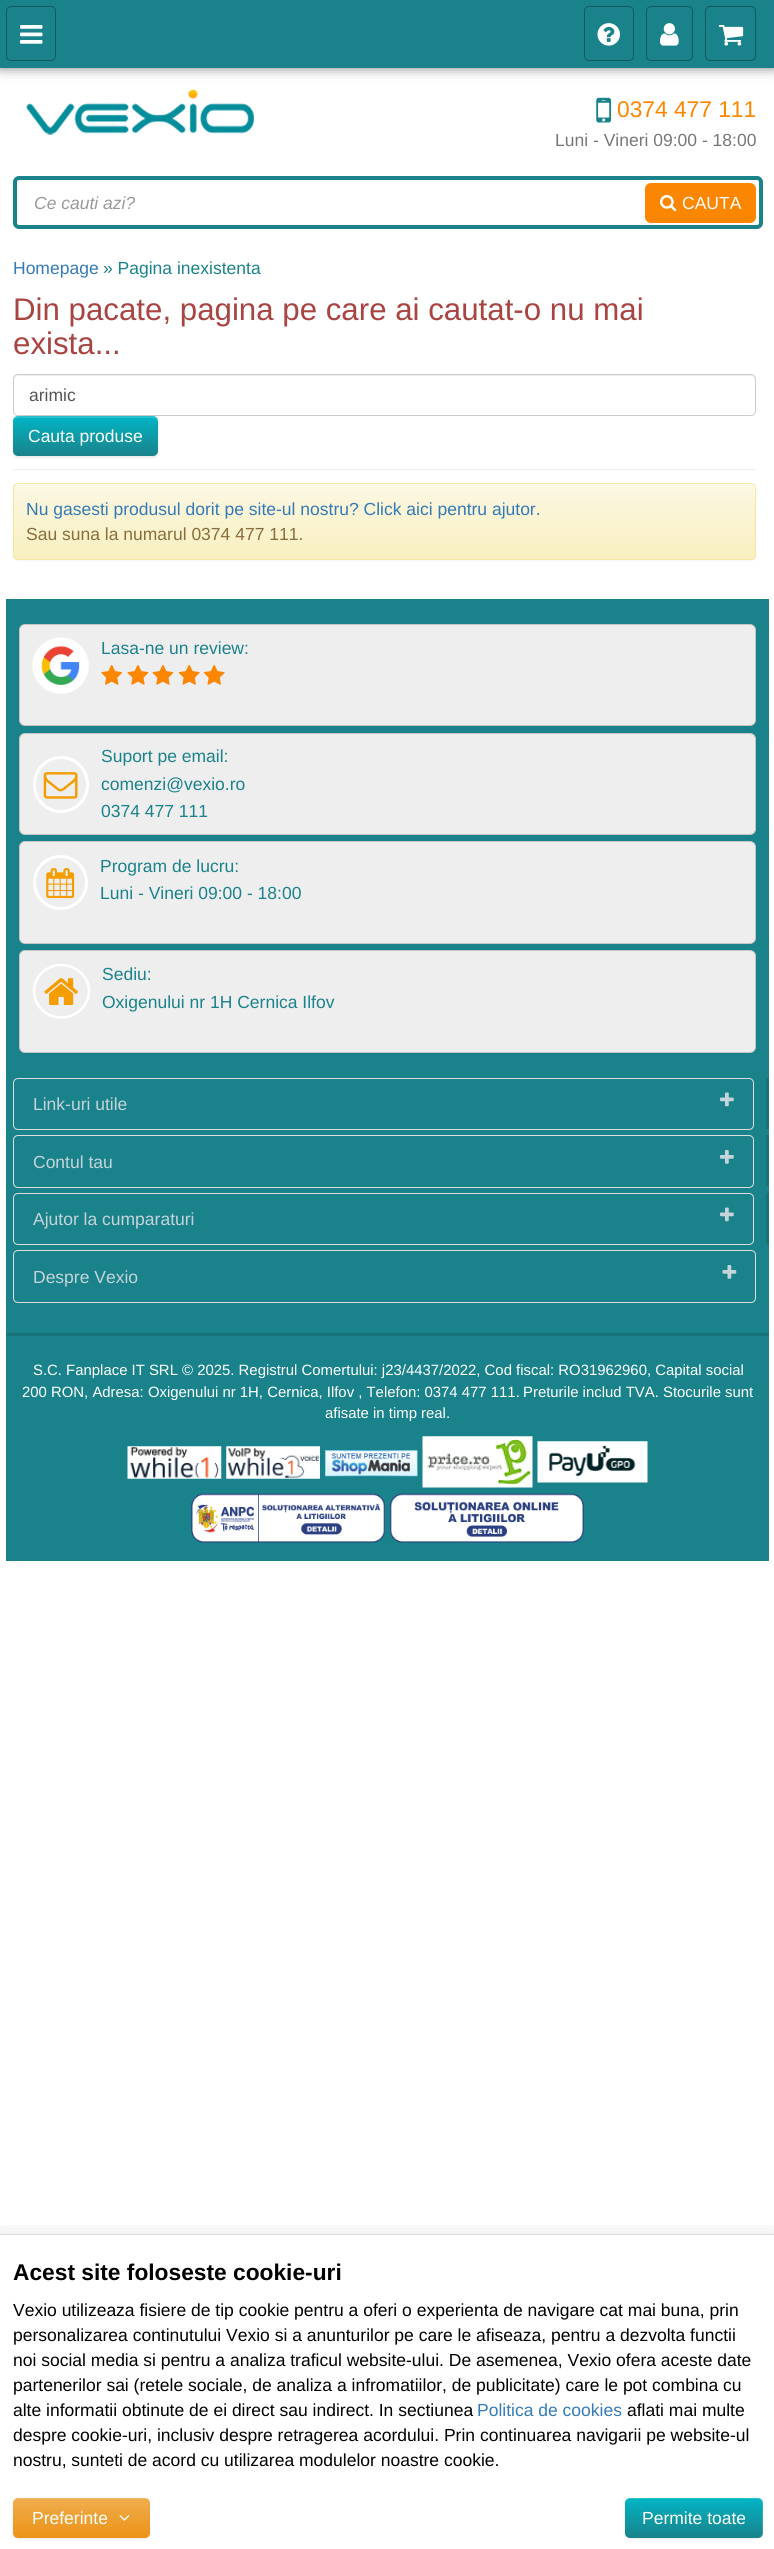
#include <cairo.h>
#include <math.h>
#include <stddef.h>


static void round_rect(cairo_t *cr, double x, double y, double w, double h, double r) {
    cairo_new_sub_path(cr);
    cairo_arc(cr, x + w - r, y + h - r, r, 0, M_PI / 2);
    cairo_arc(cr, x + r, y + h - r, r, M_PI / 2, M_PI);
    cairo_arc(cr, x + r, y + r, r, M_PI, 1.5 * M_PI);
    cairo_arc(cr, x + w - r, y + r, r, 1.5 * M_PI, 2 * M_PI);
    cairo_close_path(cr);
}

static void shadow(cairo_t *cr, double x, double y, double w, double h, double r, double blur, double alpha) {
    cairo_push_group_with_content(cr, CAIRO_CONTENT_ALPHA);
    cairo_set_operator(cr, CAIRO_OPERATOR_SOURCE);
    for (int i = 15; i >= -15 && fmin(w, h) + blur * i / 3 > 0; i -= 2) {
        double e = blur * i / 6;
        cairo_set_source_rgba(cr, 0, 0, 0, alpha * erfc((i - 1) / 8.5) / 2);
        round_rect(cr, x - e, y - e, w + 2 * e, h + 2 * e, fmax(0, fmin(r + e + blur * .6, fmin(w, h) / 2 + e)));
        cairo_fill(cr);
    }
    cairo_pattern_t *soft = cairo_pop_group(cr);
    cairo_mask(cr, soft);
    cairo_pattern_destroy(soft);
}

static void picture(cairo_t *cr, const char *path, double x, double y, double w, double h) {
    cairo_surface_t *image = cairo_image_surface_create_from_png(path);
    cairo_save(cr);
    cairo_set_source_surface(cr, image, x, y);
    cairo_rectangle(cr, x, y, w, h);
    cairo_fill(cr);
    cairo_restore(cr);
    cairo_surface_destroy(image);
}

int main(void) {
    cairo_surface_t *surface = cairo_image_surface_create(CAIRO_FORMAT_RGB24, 774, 2549);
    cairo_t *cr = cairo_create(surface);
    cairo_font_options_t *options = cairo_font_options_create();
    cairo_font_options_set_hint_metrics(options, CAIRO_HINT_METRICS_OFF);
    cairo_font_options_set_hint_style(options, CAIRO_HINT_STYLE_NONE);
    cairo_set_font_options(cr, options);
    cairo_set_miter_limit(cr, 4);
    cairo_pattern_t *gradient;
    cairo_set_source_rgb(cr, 1, 1, 1);
    cairo_paint(cr);
    cairo_set_source_rgb(cr, 0, 0, 0);
    shadow(cr, 0, 0, 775, 68, 0, 6, 0.5);
    cairo_set_source_rgb(cr, 0.102, 0.51, 0.541);
    cairo_rectangle(cr, 0, 0, 774, 68);
    cairo_fill(cr);
    round_rect(cr, 6.5, 6.5, 49, 54, 4.5);
    cairo_set_source_rgb(cr, 0.071, 0.357, 0.38);
    cairo_set_line_width(cr, 1);
    cairo_stroke(cr);
    picture(cr, "img1.png", 20, 25, 23, 19);
    round_rect(cr, 584.5, 6.5, 49, 54, 4.5);
    cairo_stroke(cr);
    picture(cr, "img2.png", 597, 23, 23, 23);
    round_rect(cr, 646.5, 6.5, 46, 54, 4.5);
    cairo_stroke(cr);
    picture(cr, "img3.png", 660, 23, 19, 23);
    round_rect(cr, 705.5, 6.5, 50, 54, 4.5);
    cairo_stroke(cr);
    picture(cr, "img4.png", 718, 25, 26, 21);
    picture(cr, "img5.png", 26, 89, 228, 46);
    picture(cr, "img6.png", 596, 97, 16, 26);
    cairo_select_font_face(cr, "Liberation Sans", CAIRO_FONT_SLANT_NORMAL, CAIRO_FONT_WEIGHT_NORMAL);
    cairo_set_font_size(cr, 22.75);
    cairo_set_source_rgb(cr, 0.984, 0.525, 0.004);
    cairo_move_to(cr, 617, 117);
    cairo_show_text(cr, "0374 477 111");
    cairo_set_font_size(cr, 17.5);
    cairo_set_source_rgb(cr, 0.467, 0.467, 0.467);
    cairo_move_to(cr, 555, 146);
    cairo_show_text(cr, "Luni - Vineri 09:00 - 18:00");
    round_rect(cr, 15, 178, 746, 49, 4);
    cairo_set_source_rgb(cr, 0.102, 0.51, 0.541);
    cairo_set_line_width(cr, 4);
    cairo_stroke(cr);
    cairo_select_font_face(cr, "Liberation Sans", CAIRO_FONT_SLANT_ITALIC, CAIRO_FONT_WEIGHT_NORMAL);
    cairo_set_source_rgb(cr, 0.6, 0.6, 0.6);
    cairo_move_to(cr, 34, 209);
    cairo_show_text(cr, "Ce cauti azi?");
    cairo_set_source_rgb(cr, 0.984, 0.525, 0.004);
    round_rect(cr, 645, 183, 111, 40, 6);
    cairo_fill(cr);
    picture(cr, "img7.png", 660, 195, 17, 17);
    cairo_select_font_face(cr, "Liberation Sans", CAIRO_FONT_SLANT_NORMAL, CAIRO_FONT_WEIGHT_NORMAL);
    cairo_set_source_rgb(cr, 1, 1, 1);
    cairo_move_to(cr, 682, 209);
    cairo_show_text(cr, "CAUTA");
    cairo_set_source_rgb(cr, 0.2, 0.478, 0.718);
    cairo_move_to(cr, 13, 274);
    cairo_show_text(cr, "Homepage");
    cairo_set_source_rgb(cr, 0.102, 0.51, 0.541);
    cairo_move_to(cr, 103, 274);
    cairo_show_text(cr, "» Pagina inexistenta");
    cairo_set_font_size(cr, 31.25);
    cairo_set_source_rgb(cr, 0.663, 0.267, 0.259);
    cairo_move_to(cr, 13, 320);
    cairo_show_text(cr, "Din pacate, pagina pe care ai cautat-o nu mai");
    cairo_move_to(cr, 13, 354);
    cairo_show_text(cr, "exista...");
    cairo_set_source_rgb(cr, 0.925, 0.925, 0.925);
    cairo_new_path(cr);
    cairo_move_to(cr, 18, 376);
    cairo_line_to(cr, 751, 376);
    cairo_curve_to(cr, 753, 376, 755, 378, 755, 380);
    cairo_curve_to(cr, 755, 377, 754, 375, 751, 375);
    cairo_line_to(cr, 18, 375);
    cairo_line_to(cr, 15, 376);
    cairo_line_to(cr, 14, 377);
    cairo_line_to(cr, 14, 380);
    cairo_curve_to(cr, 14, 378, 15, 376, 18, 376);
    cairo_close_path(cr);
    cairo_fill(cr);
    round_rect(cr, 13.5, 374.5, 742, 41, 4.5);
    cairo_set_source_rgb(cr, 0.8, 0.8, 0.8);
    cairo_set_line_width(cr, 1);
    cairo_stroke(cr);
    cairo_set_font_size(cr, 17.5);
    cairo_set_source_rgb(cr, 0.333, 0.333, 0.333);
    cairo_move_to(cr, 29, 401);
    cairo_show_text(cr, "arimic");
    cairo_set_source_rgb(cr, 0, 0, 0);
    shadow(cr, 13, 418, 145, 40, 5, 0.5, 0.07);
    gradient = cairo_pattern_create_linear(85, 416, 85, 456);
    cairo_pattern_add_color_stop_rgba(gradient, 0, 0.004, 0.71, 0.776, 1);
    cairo_pattern_add_color_stop_rgba(gradient, 1, 0.102, 0.51, 0.541, 1);
    cairo_set_source(cr, gradient);
    cairo_pattern_destroy(gradient);
    round_rect(cr, 13, 416, 145, 40, 5);
    cairo_fill(cr);
    cairo_set_source_rgba(cr, 1, 1, 1, 0.15);
    cairo_new_path(cr);
    cairo_move_to(cr, 18, 418);
    cairo_line_to(cr, 152, 418);
    cairo_curve_to(cr, 155, 418, 158, 420, 158, 422);
    cairo_line_to(cr, 158, 421);
    cairo_curve_to(cr, 158, 418, 156, 416, 153, 416);
    cairo_line_to(cr, 18, 416);
    cairo_curve_to(cr, 16, 416, 14, 418, 13, 420);
    cairo_curve_to(cr, 14, 419, 16, 418, 18, 418);
    cairo_close_path(cr);
    cairo_fill(cr);
    cairo_set_source_rgb(cr, 1, 1, 1);
    cairo_move_to(cr, 28, 442);
    cairo_show_text(cr, "Cauta produse");
    cairo_set_source_rgb(cr, 0.933, 0.933, 0.933);
    cairo_rectangle(cr, 13, 469, 743, 1);
    cairo_fill(cr);
    cairo_set_source_rgb(cr, 0, 0, 0);
    shadow(cr, 13, 484, 743, 77, 5, 1, 0.05);
    cairo_save(cr);
    round_rect(cr, 13, 483, 743, 77, 5);
    cairo_clip(cr);
    gradient = cairo_pattern_create_linear(384, 484, 384, 559);
    cairo_pattern_add_color_stop_rgba(gradient, 0, 0.988, 0.973, 0.89, 1);
    cairo_pattern_add_color_stop_rgba(gradient, 1, 0.973, 0.937, 0.753, 1);
    cairo_set_source(cr, gradient);
    cairo_pattern_destroy(gradient);
    cairo_rectangle(cr, 13, 484, 743, 75);
    cairo_fill(cr);
    cairo_restore(cr);
    cairo_set_source_rgb(cr, 0.992, 0.98, 0.918);
    cairo_new_path(cr);
    cairo_move_to(cr, 18, 485);
    cairo_line_to(cr, 751, 485);
    cairo_curve_to(cr, 753, 485, 755, 487, 755, 489);
    cairo_curve_to(cr, 755, 486, 754, 484, 751, 484);
    cairo_line_to(cr, 18, 484);
    cairo_line_to(cr, 15, 485);
    cairo_line_to(cr, 14, 486);
    cairo_line_to(cr, 14, 489);
    cairo_curve_to(cr, 14, 487, 15, 485, 18, 485);
    cairo_close_path(cr);
    cairo_fill(cr);
    round_rect(cr, 13.5, 483.5, 742, 76, 4.5);
    cairo_set_source_rgb(cr, 0.961, 0.906, 0.62);
    cairo_stroke(cr);
    cairo_set_source_rgb(cr, 0.2, 0.478, 0.718);
    cairo_move_to(cr, 26, 515);
    cairo_show_text(cr, "Nu gasesti produsul dorit pe site-ul nostru? Click aici pentru ajutor.");
    cairo_set_source_rgb(cr, 0.541, 0.427, 0.231);
    cairo_move_to(cr, 26, 540);
    cairo_show_text(cr, "Sau suna la numarul 0374 477 111.");
    cairo_set_source_rgb(cr, 0.102, 0.51, 0.541);
    cairo_rectangle(cr, 6, 599, 763, 962);
    cairo_fill(cr);
    cairo_set_source_rgb(cr, 0.933, 0.933, 0.933);
    round_rect(cr, 19.5, 624.5, 736, 101, 5.5);
    cairo_fill_preserve(cr);
    cairo_set_source_rgb(cr, 0.773, 0.765, 0.765);
    cairo_stroke(cr);
    picture(cr, "img8.png", 32, 637, 57, 57);
    cairo_set_source_rgb(cr, 0.102, 0.51, 0.541);
    cairo_move_to(cr, 101, 654);
    cairo_show_text(cr, "Lasa-ne un review:");
    picture(cr, "img9.png", 101, 664, 22, 21);
    picture(cr, "img10.png", 127, 664, 22, 21);
    picture(cr, "img10.png", 152, 664, 22, 21);
    picture(cr, "img11.png", 178, 664, 22, 21);
    picture(cr, "img11.png", 203, 664, 22, 21);
    cairo_set_source_rgb(cr, 0.933, 0.933, 0.933);
    round_rect(cr, 19.5, 733.5, 736, 101, 5.5);
    cairo_fill_preserve(cr);
    cairo_set_source_rgb(cr, 0.773, 0.765, 0.765);
    cairo_stroke(cr);
    round_rect(cr, 34.5, 757.5, 53, 54, 26.5);
    cairo_set_source_rgb(cr, 1, 1, 1);
    cairo_set_line_width(cr, 3);
    cairo_stroke(cr);
    picture(cr, "img12.png", 43, 772, 35, 27);
    cairo_set_source_rgb(cr, 0.102, 0.51, 0.541);
    cairo_move_to(cr, 101, 762);
    cairo_show_text(cr, "Suport pe email:");
    cairo_move_to(cr, 101, 790);
    cairo_show_text(cr, "comenzi@vexio.ro");
    cairo_move_to(cr, 101, 817);
    cairo_show_text(cr, "0374 477 111");
    cairo_set_source_rgb(cr, 0.933, 0.933, 0.933);
    round_rect(cr, 19.5, 841.5, 736, 102, 5.5);
    cairo_fill_preserve(cr);
    cairo_set_source_rgb(cr, 0.773, 0.765, 0.765);
    cairo_set_line_width(cr, 1);
    cairo_stroke(cr);
    cairo_arc(cr, 60.5, 882.5, 26, 0, 2 * M_PI);
    cairo_set_source_rgb(cr, 1, 1, 1);
    cairo_set_line_width(cr, 3);
    cairo_stroke(cr);
    picture(cr, "img13.png", 46, 868, 29, 31);
    cairo_set_source_rgb(cr, 0.102, 0.51, 0.541);
    cairo_move_to(cr, 100, 872);
    cairo_show_text(cr, "Program de lucru:");
    cairo_move_to(cr, 100, 899);
    cairo_show_text(cr, "Luni - Vineri 09:00 - 18:00");
    cairo_set_source_rgb(cr, 0.933, 0.933, 0.933);
    round_rect(cr, 19.5, 950.5, 736, 102, 5.5);
    cairo_fill_preserve(cr);
    cairo_set_source_rgb(cr, 0.773, 0.765, 0.765);
    cairo_set_line_width(cr, 1);
    cairo_stroke(cr);
    cairo_new_path(cr);
    cairo_move_to(cr, 61, 965);
    cairo_curve_to(cr, 76.5, 965, 89, 977, 89, 991);
    cairo_curve_to(cr, 89, 1005.5, 76.5, 1017.5, 61, 1017.5);
    cairo_curve_to(cr, 46, 1017.5, 34, 1005.5, 34, 991);
    cairo_curve_to(cr, 34, 977, 46, 965, 61, 965);
    cairo_close_path(cr);
    cairo_set_source_rgb(cr, 1, 1, 1);
    cairo_set_line_width(cr, 2.5);
    cairo_stroke(cr);
    picture(cr, "img14.png", 44, 978, 34, 27);
    cairo_set_source_rgb(cr, 0.102, 0.51, 0.541);
    cairo_move_to(cr, 102, 980);
    cairo_show_text(cr, "Sediu:");
    cairo_move_to(cr, 102, 1008);
    cairo_show_text(cr, "Oxigenului nr 1H Cernica Ilfov");
    cairo_set_source_rgb(cr, 0.09, 0.451, 0.478);
    cairo_rectangle(cr, 6, 1333, 763, 3);
    cairo_fill(cr);
    cairo_rectangle(cr, 766, 1078, 3, 51);
    cairo_fill(cr);
    round_rect(cr, 13.5, 1078.5, 740, 51, 4.5);
    cairo_set_source_rgb(cr, 0.867, 0.867, 0.867);
    cairo_set_line_width(cr, 1);
    cairo_stroke(cr);
    cairo_set_source_rgb(cr, 0.773, 0.831, 0.855);
    cairo_move_to(cr, 33, 1110);
    cairo_show_text(cr, "Link-uri utile");
    picture(cr, "img15.png", 720, 1092, 14, 15);
    cairo_set_source_rgb(cr, 0.09, 0.451, 0.478);
    cairo_rectangle(cr, 766, 1135, 3, 51);
    cairo_fill(cr);
    round_rect(cr, 13.5, 1135.5, 740, 52, 4.5);
    cairo_set_source_rgb(cr, 0.867, 0.867, 0.867);
    cairo_stroke(cr);
    cairo_set_source_rgb(cr, 0.773, 0.831, 0.855);
    cairo_move_to(cr, 33, 1168);
    cairo_show_text(cr, "Contul tau");
    picture(cr, "img16.png", 720, 1150, 14, 14);
    cairo_set_source_rgb(cr, 0.09, 0.451, 0.478);
    cairo_rectangle(cr, 766, 1193, 3, 51);
    cairo_fill(cr);
    round_rect(cr, 13.5, 1193.5, 740, 51, 4.5);
    cairo_set_source_rgb(cr, 0.867, 0.867, 0.867);
    cairo_stroke(cr);
    cairo_set_source_rgb(cr, 0.773, 0.831, 0.855);
    cairo_move_to(cr, 33, 1225);
    cairo_show_text(cr, "Ajutor la cumparaturi");
    picture(cr, "img15.png", 720, 1207, 14, 15);
    round_rect(cr, 13.5, 1250.5, 742, 52, 4.5);
    cairo_set_source_rgb(cr, 0.867, 0.867, 0.867);
    cairo_stroke(cr);
    cairo_set_source_rgb(cr, 0.773, 0.831, 0.855);
    cairo_move_to(cr, 33, 1283);
    cairo_show_text(cr, "Despre Vexio");
    picture(cr, "img17.png", 722, 1265, 15, 14);
    cairo_set_font_size(cr, 14.9);
    cairo_set_source_rgb(cr, 1, 1, 1);
    cairo_move_to(cr, 33, 1375);
    cairo_show_text(cr, "S.C. Fanplace IT SRL © 2025. Registrul Comertului: j23/4437/2022, Cod fiscal: RO31962960, Capital social");
    cairo_move_to(cr, 22, 1397);
    cairo_show_text(cr, "200 RON, Adresa: Oxigenului nr 1H, Cernica, Ilfov , Telefon: 0374 477 111.");
    cairo_move_to(cr, 523, 1397);
    cairo_show_text(cr, "Preturile includ TVA. Stocurile sunt");
    cairo_move_to(cr, 325, 1418);
    cairo_show_text(cr, "afisate in timp real.");
    picture(cr, "img18.png", 127, 1446, 95, 33);
    picture(cr, "img19.png", 226, 1446, 94, 33);
    picture(cr, "img20.png", 325, 1450, 93, 27);
    picture(cr, "img21.png", 422, 1436, 111, 52);
    picture(cr, "img22.png", 537, 1441, 111, 42);
    picture(cr, "img23.png", 191, 1493, 194, 50);
    picture(cr, "img24.png", 390, 1493, 194, 50);
    cairo_save(cr);
    cairo_rectangle(cr, 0, 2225, 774, 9);
    cairo_clip(cr);
    cairo_set_source_rgb(cr, 0, 0, 0);
    shadow(cr, 0, 2233, 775, 316, 0, 9.5, 0.1);
    cairo_restore(cr);
    cairo_set_source_rgb(cr, 0.867, 0.867, 0.867);
    cairo_rectangle(cr, 0, 2234, 774, 1);
    cairo_fill(cr);
    cairo_select_font_face(cr, "Liberation Sans", CAIRO_FONT_SLANT_NORMAL, CAIRO_FONT_WEIGHT_BOLD);
    cairo_set_font_size(cr, 22.75);
    cairo_set_source_rgb(cr, 0, 0, 0);
    cairo_move_to(cr, 13, 2280);
    cairo_show_text(cr, "Acest site foloseste cookie-uri");
    cairo_select_font_face(cr, "Liberation Sans", CAIRO_FONT_SLANT_NORMAL, CAIRO_FONT_WEIGHT_NORMAL);
    cairo_set_font_size(cr, 17.5);
    cairo_move_to(cr, 13, 2316);
    cairo_show_text(cr, "Vexio utilizeaza fisiere de tip cookie pentru a oferi o experienta de navigare cat mai buna, prin");
    cairo_move_to(cr, 13, 2341);
    cairo_show_text(cr, "personalizarea continutului Vexio si a anunturilor pe care le afiseaza, pentru a dezvolta functii");
    cairo_move_to(cr, 13, 2366);
    cairo_show_text(cr, "noi social media si pentru a analiza traficul website-ului. De asemenea, Vexio ofera aceste date");
    cairo_move_to(cr, 13, 2391);
    cairo_show_text(cr, "partenerilor sai (retele sociale, de analiza a infromatiilor, de publicitate) care le pot combina cu");
    cairo_move_to(cr, 13, 2416);
    cairo_show_text(cr, "alte informatii obtinute de ei direct sau indirect. In sectiunea");
    cairo_set_source_rgb(cr, 0.2, 0.478, 0.718);
    cairo_move_to(cr, 477, 2416);
    cairo_show_text(cr, "Politica de cookies");
    cairo_set_source_rgb(cr, 0, 0, 0);
    cairo_move_to(cr, 627, 2416);
    cairo_show_text(cr, "aflati mai multe");
    cairo_move_to(cr, 13, 2441);
    cairo_show_text(cr, "despre cookie-uri, inclusiv despre retragerea acordului. Prin continuarea navigarii pe website-ul");
    cairo_move_to(cr, 13, 2466);
    cairo_show_text(cr, "nostru, sunteti de acord cu utilizarea modulelor noastre cookie.");
    cairo_set_source_rgb(cr, 0, 0, 0);
    shadow(cr, 13, 2499, 137, 40, 5, 0.5, 0.07);
    gradient = cairo_pattern_create_linear(81, 2498, 81, 2538);
    cairo_pattern_add_color_stop_rgba(gradient, 0, 0.941, 0.678, 0.306, 1);
    cairo_pattern_add_color_stop_rgba(gradient, 1, 0.922, 0.576, 0.086, 1);
    cairo_set_source(cr, gradient);
    cairo_pattern_destroy(gradient);
    round_rect(cr, 13, 2498, 137, 40, 5);
    cairo_fill(cr);
    cairo_set_source_rgba(cr, 1, 1, 1, 0.15);
    cairo_new_path(cr);
    cairo_move_to(cr, 18, 2499);
    cairo_line_to(cr, 145, 2499);
    cairo_curve_to(cr, 148, 2499, 150, 2501, 150, 2504);
    cairo_line_to(cr, 150, 2503);
    cairo_curve_to(cr, 150, 2500, 148, 2498, 145, 2498);
    cairo_line_to(cr, 18, 2498);
    cairo_curve_to(cr, 16, 2498, 14, 2499, 14, 2501);
    cairo_curve_to(cr, 15, 2500, 16, 2499, 18, 2499);
    cairo_close_path(cr);
    cairo_fill(cr);
    cairo_set_source_rgb(cr, 1, 1, 1);
    cairo_move_to(cr, 32, 2524);
    cairo_show_text(cr, "Preferinte");
    picture(cr, "img25.png", 119, 2515, 11, 6);
    cairo_set_source_rgb(cr, 0, 0, 0);
    shadow(cr, 625, 2499, 138, 40, 5, 0.5, 0.07);
    gradient = cairo_pattern_create_linear(694, 2498, 694, 2538);
    cairo_pattern_add_color_stop_rgba(gradient, 0, 0.004, 0.71, 0.776, 1);
    cairo_pattern_add_color_stop_rgba(gradient, 1, 0.102, 0.51, 0.541, 1);
    cairo_set_source(cr, gradient);
    cairo_pattern_destroy(gradient);
    round_rect(cr, 625, 2498, 138, 40, 5);
    cairo_fill(cr);
    cairo_set_source_rgba(cr, 1, 1, 1, 0.15);
    cairo_new_path(cr);
    cairo_move_to(cr, 630, 2499);
    cairo_line_to(cr, 758, 2499);
    cairo_curve_to(cr, 760, 2499, 762, 2501, 762, 2504);
    cairo_line_to(cr, 762, 2534);
    cairo_line_to(cr, 761, 2537);
    cairo_curve_to(cr, 762, 2536, 763, 2534, 763, 2533);
    cairo_line_to(cr, 763, 2503);
    cairo_curve_to(cr, 763, 2500, 761, 2498, 758, 2498);
    cairo_line_to(cr, 630, 2498);
    cairo_curve_to(cr, 627, 2498, 625, 2500, 625, 2503);
    cairo_line_to(cr, 625, 2504);
    cairo_curve_to(cr, 625, 2501, 627, 2499, 630, 2499);
    cairo_close_path(cr);
    cairo_fill(cr);
    cairo_set_source_rgb(cr, 1, 1, 1);
    cairo_move_to(cr, 642, 2524);
    cairo_show_text(cr, "Permite toate");
    cairo_surface_write_to_png(surface, "page.png");
    cairo_font_options_destroy(options);
    cairo_destroy(cr);
    cairo_surface_destroy(surface);
    return 0;
}
